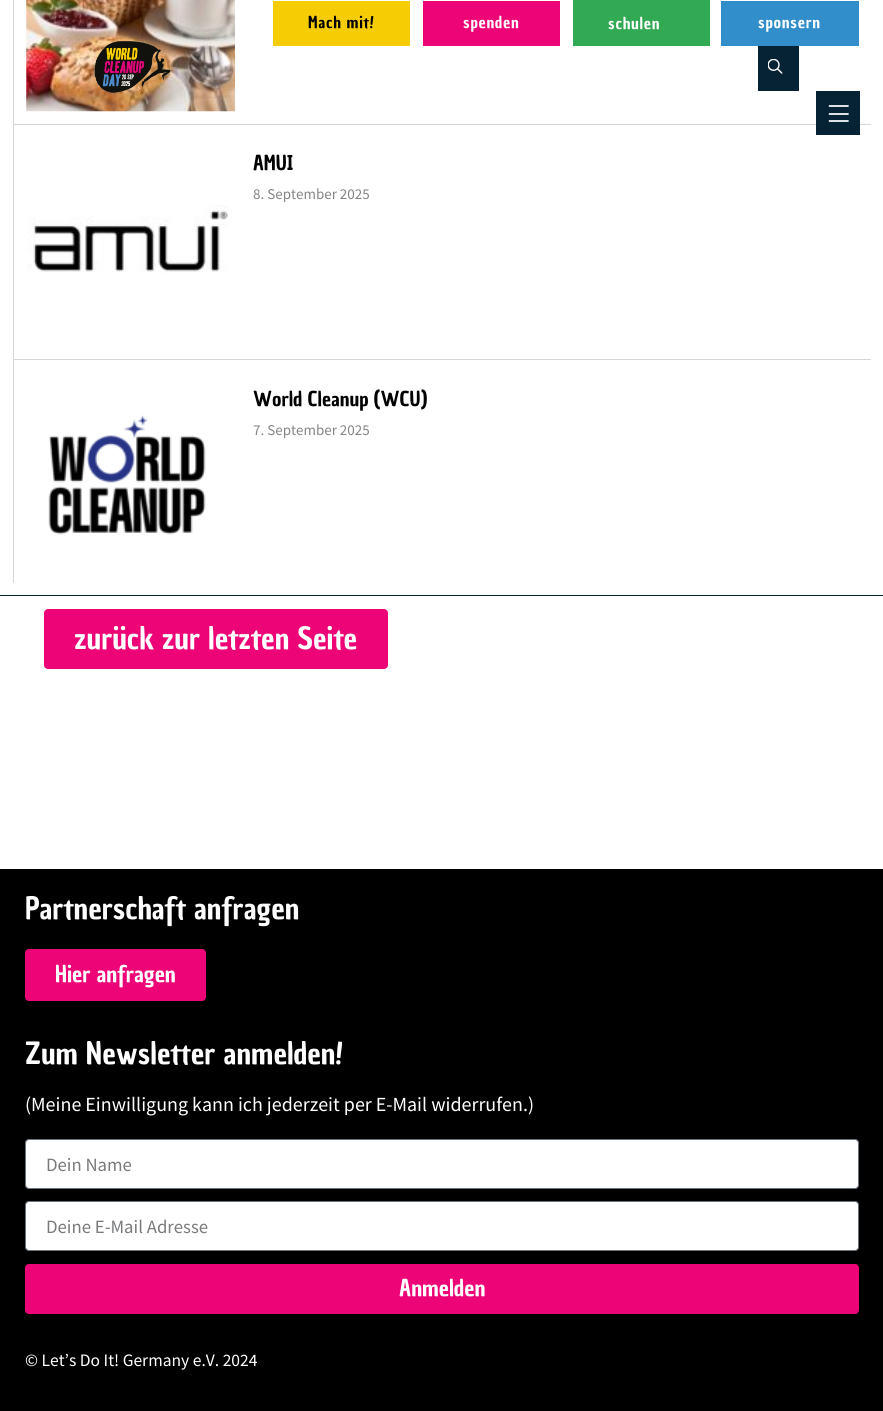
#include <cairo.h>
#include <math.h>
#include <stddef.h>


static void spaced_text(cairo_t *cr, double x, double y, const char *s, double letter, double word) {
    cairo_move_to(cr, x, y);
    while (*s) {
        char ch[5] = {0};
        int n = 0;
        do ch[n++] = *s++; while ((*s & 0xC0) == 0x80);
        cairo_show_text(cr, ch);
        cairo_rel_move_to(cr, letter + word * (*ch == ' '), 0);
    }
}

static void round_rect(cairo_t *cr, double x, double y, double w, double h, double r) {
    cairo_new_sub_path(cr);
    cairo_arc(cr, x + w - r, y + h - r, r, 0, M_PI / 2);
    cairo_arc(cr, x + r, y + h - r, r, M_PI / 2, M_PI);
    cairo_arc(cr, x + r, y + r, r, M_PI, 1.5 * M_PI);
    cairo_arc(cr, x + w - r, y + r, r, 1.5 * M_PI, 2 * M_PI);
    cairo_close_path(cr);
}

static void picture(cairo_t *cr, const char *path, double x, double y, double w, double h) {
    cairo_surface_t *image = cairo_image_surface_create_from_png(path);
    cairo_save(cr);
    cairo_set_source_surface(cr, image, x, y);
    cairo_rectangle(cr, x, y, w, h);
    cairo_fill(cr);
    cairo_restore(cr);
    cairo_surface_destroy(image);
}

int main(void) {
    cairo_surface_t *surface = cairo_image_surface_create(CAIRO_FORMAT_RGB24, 883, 1411);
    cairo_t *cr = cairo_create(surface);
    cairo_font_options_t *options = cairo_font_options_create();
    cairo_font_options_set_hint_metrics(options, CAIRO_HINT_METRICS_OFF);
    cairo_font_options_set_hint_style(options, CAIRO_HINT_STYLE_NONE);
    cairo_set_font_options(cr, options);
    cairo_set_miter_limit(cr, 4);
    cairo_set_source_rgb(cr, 1, 1, 1);
    cairo_paint(cr);
    cairo_set_source_rgb(cr, 0.961, 0.8, 0.016);
    cairo_rectangle(cr, 273, 1, 137, 45);
    cairo_fill(cr);
    cairo_select_font_face(cr, "Chau Philomene One", CAIRO_FONT_SLANT_NORMAL, CAIRO_FONT_WEIGHT_NORMAL);
    cairo_set_font_size(cr, 16);
    cairo_set_source_rgb(cr, 0, 0, 0);
    spaced_text(cr, 308, 28, "Mach mit!", 0.75, 0);
    cairo_set_source_rgb(cr, 0.929, 0.02, 0.467);
    cairo_rectangle(cr, 423, 1, 137, 45);
    cairo_fill(cr);
    cairo_set_source_rgb(cr, 1, 1, 1);
    spaced_text(cr, 463, 28, "spenden", 0.75, 0);
    cairo_set_source_rgb(cr, 0.192, 0.667, 0.325);
    cairo_rectangle(cr, 573, 0, 137, 46);
    cairo_fill(cr);
    cairo_set_source_rgb(cr, 1, 1, 1);
    spaced_text(cr, 608, 29, "schulen", 0.75, 0);
    cairo_set_source_rgb(cr, 0.196, 0.557, 0.796);
    cairo_rectangle(cr, 721, 1, 138, 45);
    cairo_fill(cr);
    cairo_set_source_rgb(cr, 1, 1, 1);
    spaced_text(cr, 758, 28, "sponsern", 0.75, 0);
    cairo_set_source_rgb(cr, 0.027, 0.133, 0.208);
    cairo_rectangle(cr, 758, 46, 41, 45);
    cairo_fill(cr);
    picture(cr, "img1.png", 768, 59, 15, 15);
    cairo_set_source_rgb(cr, 0.824, 0.843, 0.859);
    cairo_rectangle(cr, 14, 124, 857, 1);
    cairo_fill(cr);
    cairo_set_source_rgb(cr, 0.027, 0.133, 0.208);
    cairo_rectangle(cr, 816, 91, 44, 44);
    cairo_fill(cr);
    cairo_new_path(cr);
    cairo_move_to(cr, 829.5, 121);
    cairo_line_to(cr, 848, 121);
    cairo_move_to(cr, 829.5, 106);
    cairo_line_to(cr, 848, 106);
    cairo_move_to(cr, 829.5, 114);
    cairo_line_to(cr, 848, 114);
    cairo_set_source_rgb(cr, 1, 1, 1);
    cairo_set_line_width(cr, 1.7);
    cairo_set_line_cap(cr, CAIRO_LINE_CAP_ROUND);
    cairo_set_line_join(cr, CAIRO_LINE_JOIN_ROUND);
    cairo_stroke(cr);
    picture(cr, "img3.png", 26, 0, 209, 112);
    picture(cr, "img2.png", 94, 41, 77, 52);
    cairo_set_source_rgb(cr, 0.824, 0.843, 0.859);
    cairo_rectangle(cr, 13, 0, 1, 583);
    cairo_fill(cr);
    cairo_set_font_size(cr, 20);
    cairo_set_source_rgb(cr, 0, 0, 0);
    cairo_move_to(cr, 253, 170);
    cairo_show_text(cr, "AMUI");
    cairo_select_font_face(cr, "Source Sans Pro", CAIRO_FONT_SLANT_NORMAL, CAIRO_FONT_WEIGHT_NORMAL);
    cairo_set_font_size(cr, 15);
    cairo_set_source_rgb(cr, 0.522, 0.522, 0.522);
    cairo_move_to(cr, 253, 199);
    cairo_show_text(cr, "8. September 2025");
    picture(cr, "img4.png", 27, 205, 201, 68);
    cairo_set_source_rgb(cr, 0.824, 0.843, 0.859);
    cairo_rectangle(cr, 14, 359, 857, 1);
    cairo_fill(cr);
    picture(cr, "img5.png", 48, 415, 158, 120);
    cairo_select_font_face(cr, "Chau Philomene One", CAIRO_FONT_SLANT_NORMAL, CAIRO_FONT_WEIGHT_NORMAL);
    cairo_set_font_size(cr, 20);
    cairo_set_source_rgb(cr, 0, 0, 0);
    cairo_move_to(cr, 253, 406);
    cairo_show_text(cr, "World Cleanup (WCU)");
    cairo_select_font_face(cr, "Source Sans Pro", CAIRO_FONT_SLANT_NORMAL, CAIRO_FONT_WEIGHT_NORMAL);
    cairo_set_font_size(cr, 15);
    cairo_set_source_rgb(cr, 0.522, 0.522, 0.522);
    cairo_move_to(cr, 253, 435);
    cairo_show_text(cr, "7. September 2025");
    cairo_set_source_rgb(cr, 0.027, 0.133, 0.208);
    cairo_rectangle(cr, 0, 595, 883, 1);
    cairo_fill(cr);
    cairo_set_source_rgb(cr, 0.929, 0.02, 0.467);
    round_rect(cr, 44, 609, 344, 60, 4);
    cairo_fill(cr);
    cairo_select_font_face(cr, "Chau Philomene One", CAIRO_FONT_SLANT_NORMAL, CAIRO_FONT_WEIGHT_NORMAL);
    cairo_set_font_size(cr, 30);
    cairo_set_source_rgb(cr, 1, 1, 1);
    cairo_move_to(cr, 74, 649);
    cairo_show_text(cr, "zurück zur letzten Seite");
    cairo_set_source_rgb(cr, 0, 0, 0);
    cairo_rectangle(cr, 0, 869, 883, 542);
    cairo_fill(cr);
    cairo_set_source_rgb(cr, 1, 1, 1);
    cairo_move_to(cr, 25, 919);
    cairo_show_text(cr, "Partnerschaft anfragen");
    cairo_set_source_rgb(cr, 0.929, 0.02, 0.467);
    round_rect(cr, 25, 949, 181, 52, 4);
    cairo_fill(cr);
    cairo_set_font_size(cr, 22.5);
    cairo_set_source_rgb(cr, 1, 1, 1);
    cairo_move_to(cr, 55, 982);
    cairo_show_text(cr, "Hier anfragen");
    cairo_set_font_size(cr, 30);
    cairo_move_to(cr, 25, 1064);
    cairo_show_text(cr, "Zum Newsletter anmelden!");
    cairo_select_font_face(cr, "Source Sans Pro", CAIRO_FONT_SLANT_NORMAL, CAIRO_FONT_WEIGHT_NORMAL);
    cairo_set_font_size(cr, 20);
    cairo_move_to(cr, 25, 1111);
    cairo_show_text(cr, "(Meine Einwilligung kann ich jederzeit per E-Mail widerrufen.)");
    round_rect(cr, 25.5, 1139.5, 833, 49, 3.5);
    cairo_fill_preserve(cr);
    cairo_set_source_rgb(cr, 0.412, 0.447, 0.49);
    cairo_set_line_width(cr, 1);
    cairo_set_line_cap(cr, CAIRO_LINE_CAP_BUTT);
    cairo_set_line_join(cr, CAIRO_LINE_JOIN_MITER);
    cairo_stroke(cr);
    cairo_set_font_size(cr, 18.75);
    cairo_set_source_rgb(cr, 0.475, 0.478, 0.486);
    cairo_move_to(cr, 46, 1171);
    cairo_show_text(cr, "Dein Name");
    cairo_set_source_rgb(cr, 1, 1, 1);
    round_rect(cr, 25.5, 1201.5, 833, 49, 3.5);
    cairo_fill_preserve(cr);
    cairo_set_source_rgb(cr, 0.412, 0.447, 0.49);
    cairo_stroke(cr);
    cairo_set_source_rgb(cr, 0.475, 0.478, 0.486);
    cairo_move_to(cr, 46, 1233);
    cairo_show_text(cr, "Deine E-Mail Adresse");
    cairo_set_source_rgb(cr, 0.929, 0.02, 0.467);
    round_rect(cr, 25, 1264, 834, 50, 4);
    cairo_fill(cr);
    cairo_select_font_face(cr, "Chau Philomene One", CAIRO_FONT_SLANT_NORMAL, CAIRO_FONT_WEIGHT_NORMAL);
    cairo_set_font_size(cr, 22.5);
    cairo_set_source_rgb(cr, 1, 1, 1);
    cairo_move_to(cr, 399, 1296);
    cairo_show_text(cr, "Anmelden");
    cairo_select_font_face(cr, "Source Sans Pro", CAIRO_FONT_SLANT_NORMAL, CAIRO_FONT_WEIGHT_NORMAL);
    cairo_set_font_size(cr, 17.5);
    cairo_move_to(cr, 25, 1366);
    cairo_show_text(cr, "© Let’s Do It! Germany e.V. 2024");
    cairo_surface_write_to_png(surface, "page.png");
    cairo_font_options_destroy(options);
    cairo_destroy(cr);
    cairo_surface_destroy(surface);
    return 0;
}
